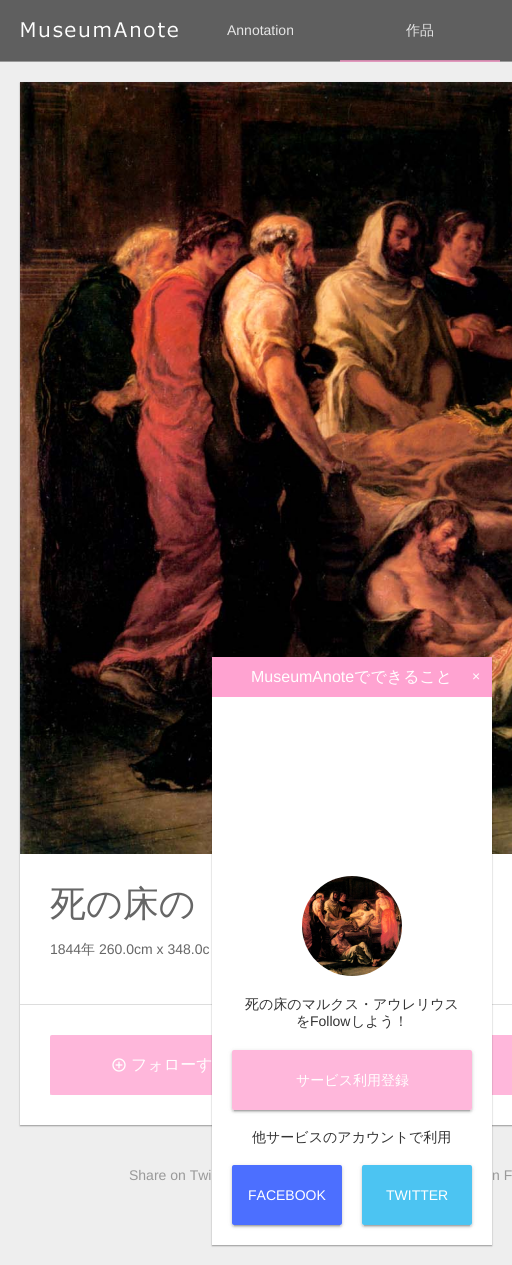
#include <cairo.h>
#include <math.h>
#include <stddef.h>


static void round_rect(cairo_t *cr, double x, double y, double w, double h, double r) {
    cairo_new_sub_path(cr);
    cairo_arc(cr, x + w - r, y + h - r, r, 0, M_PI / 2);
    cairo_arc(cr, x + r, y + h - r, r, M_PI / 2, M_PI);
    cairo_arc(cr, x + r, y + r, r, M_PI, 1.5 * M_PI);
    cairo_arc(cr, x + w - r, y + r, r, 1.5 * M_PI, 2 * M_PI);
    cairo_close_path(cr);
}

static void shadow(cairo_t *cr, double x, double y, double w, double h, double r, double blur, double alpha) {
    cairo_push_group_with_content(cr, CAIRO_CONTENT_ALPHA);
    cairo_set_operator(cr, CAIRO_OPERATOR_SOURCE);
    for (int i = 15; i >= -15 && fmin(w, h) + blur * i / 3 > 0; i -= 2) {
        double e = blur * i / 6;
        cairo_set_source_rgba(cr, 0, 0, 0, alpha * erfc((i - 1) / 8.5) / 2);
        round_rect(cr, x - e, y - e, w + 2 * e, h + 2 * e, fmax(0, fmin(r + e + blur * .6, fmin(w, h) / 2 + e)));
        cairo_fill(cr);
    }
    cairo_pattern_t *soft = cairo_pop_group(cr);
    cairo_mask(cr, soft);
    cairo_pattern_destroy(soft);
}

static void picture(cairo_t *cr, const char *path, double x, double y, double w, double h) {
    cairo_surface_t *image = cairo_image_surface_create_from_png(path);
    cairo_save(cr);
    cairo_set_source_surface(cr, image, x, y);
    cairo_rectangle(cr, x, y, w, h);
    cairo_fill(cr);
    cairo_restore(cr);
    cairo_surface_destroy(image);
}

int main(void) {
    cairo_surface_t *surface = cairo_image_surface_create(CAIRO_FORMAT_RGB24, 512, 1265);
    cairo_t *cr = cairo_create(surface);
    cairo_font_options_t *options = cairo_font_options_create();
    cairo_font_options_set_hint_metrics(options, CAIRO_HINT_METRICS_OFF);
    cairo_font_options_set_hint_style(options, CAIRO_HINT_STYLE_NONE);
    cairo_set_font_options(cr, options);
    cairo_set_miter_limit(cr, 4);
    cairo_set_source_rgb(cr, 0.933, 0.933, 0.933);
    cairo_paint(cr);
    cairo_set_source_rgb(cr, 0.373, 0.373, 0.373);
    cairo_rectangle(cr, 0, 0, 512, 61);
    cairo_fill(cr);
    cairo_set_source_rgb(cr, 0.812, 0.533, 0.671);
    cairo_rectangle(cr, 340, 60, 160, 1);
    cairo_fill(cr);
    cairo_set_source_rgb(cr, 0.6, 0.6, 0.6);
    cairo_rectangle(cr, 0, 61, 512, 1);
    cairo_fill(cr);
    cairo_set_source_rgb(cr, 0.878, 0.6, 0.741);
    cairo_rectangle(cr, 340, 61, 160, 1);
    cairo_fill(cr);
    picture(cr, "img1.png", 21, 22, 157, 16);
    cairo_select_font_face(cr, "Liberation Sans", CAIRO_FONT_SLANT_NORMAL, CAIRO_FONT_WEIGHT_NORMAL);
    cairo_set_font_size(cr, 14);
    cairo_set_source_rgb(cr, 0.898, 0.898, 0.898);
    cairo_move_to(cr, 227, 35);
    cairo_show_text(cr, "Annotation");
    cairo_select_font_face(cr, "WenQuanYi Zen Hei Medium", CAIRO_FONT_SLANT_NORMAL, CAIRO_FONT_WEIGHT_NORMAL);
    cairo_move_to(cr, 406, 35);
    cairo_show_text(cr, "作品");
    cairo_set_source_rgb(cr, 0, 0, 0);
    shadow(cr, 20, 83, 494, 1043, 0, 0.5, 0.24);
    shadow(cr, 20, 83, 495, 1043, 0, 1, 0.12);
    cairo_set_source_rgb(cr, 1, 1, 1);
    cairo_rectangle(cr, 20, 854, 492, 271);
    cairo_fill(cr);
    picture(cr, "img2.png", 20, 82, 492, 772);
    cairo_set_source_rgb(cr, 0.867, 0.867, 0.867);
    cairo_rectangle(cr, 20, 1004, 492, 1);
    cairo_fill(cr);
    cairo_set_font_size(cr, 36);
    cairo_set_source_rgb(cr, 0.4, 0.4, 0.4);
    cairo_move_to(cr, 50, 916);
    cairo_show_text(cr, "死の床の");
    cairo_select_font_face(cr, "Liberation Sans", CAIRO_FONT_SLANT_NORMAL, CAIRO_FONT_WEIGHT_NORMAL);
    cairo_set_font_size(cr, 14);
    cairo_move_to(cr, 50, 954);
    cairo_show_text(cr, "1844");
    cairo_select_font_face(cr, "WenQuanYi Zen Hei Medium", CAIRO_FONT_SLANT_NORMAL, CAIRO_FONT_WEIGHT_NORMAL);
    cairo_move_to(cr, 81, 954);
    cairo_show_text(cr, "年");
    cairo_select_font_face(cr, "Liberation Sans", CAIRO_FONT_SLANT_NORMAL, CAIRO_FONT_WEIGHT_NORMAL);
    cairo_move_to(cr, 99, 954);
    cairo_show_text(cr, "260.0cm x 348.0c");
    cairo_save(cr);
    cairo_rectangle(cr, 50, 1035, 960, 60);
    cairo_clip(cr);
    cairo_set_fill_rule(cr, CAIRO_FILL_RULE_EVEN_ODD);
    cairo_new_path(cr);
    cairo_move_to(cr, 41, 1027);
    cairo_line_to(cr, 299, 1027);
    cairo_line_to(cr, 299, 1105);
    cairo_line_to(cr, 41, 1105);
    cairo_close_path(cr);
    cairo_move_to(cr, 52, 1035);
    cairo_line_to(cr, 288, 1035);
    cairo_curve_to(cr, 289, 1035, 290, 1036, 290, 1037);
    cairo_line_to(cr, 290, 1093);
    cairo_curve_to(cr, 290, 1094, 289, 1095, 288, 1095);
    cairo_line_to(cr, 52, 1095);
    cairo_curve_to(cr, 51, 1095, 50, 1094, 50, 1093);
    cairo_line_to(cr, 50, 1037);
    cairo_curve_to(cr, 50, 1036, 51, 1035, 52, 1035);
    cairo_close_path(cr);
    cairo_clip(cr);
    cairo_set_source_rgb(cr, 0, 0, 0);
    shadow(cr, 50, 1036, 240, 60, 2, 2.5, 0.12);
    cairo_restore(cr);
    cairo_save(cr);
    cairo_rectangle(cr, 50, 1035, 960, 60);
    cairo_clip(cr);
    cairo_set_fill_rule(cr, CAIRO_FILL_RULE_EVEN_ODD);
    cairo_new_path(cr);
    cairo_move_to(cr, 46, 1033);
    cairo_line_to(cr, 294, 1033);
    cairo_line_to(cr, 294, 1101);
    cairo_line_to(cr, 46, 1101);
    cairo_close_path(cr);
    cairo_move_to(cr, 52, 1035);
    cairo_line_to(cr, 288, 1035);
    cairo_curve_to(cr, 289, 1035, 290, 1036, 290, 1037);
    cairo_line_to(cr, 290, 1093);
    cairo_curve_to(cr, 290, 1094, 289, 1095, 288, 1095);
    cairo_line_to(cr, 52, 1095);
    cairo_curve_to(cr, 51, 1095, 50, 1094, 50, 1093);
    cairo_line_to(cr, 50, 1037);
    cairo_curve_to(cr, 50, 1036, 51, 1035, 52, 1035);
    cairo_close_path(cr);
    cairo_clip(cr);
    cairo_set_source_rgb(cr, 0, 0, 0);
    shadow(cr, 50, 1037, 240, 60, 2, 1, 0.14);
    cairo_restore(cr);
    cairo_set_source_rgba(cr, 1, 0.6, 0.8, 0.7);
    round_rect(cr, 50, 1035, 240, 60, 2);
    cairo_fill(cr);
    picture(cr, "img3.png", 112, 1058, 14, 14);
    cairo_select_font_face(cr, "WenQuanYi Zen Hei Medium", CAIRO_FONT_SLANT_NORMAL, CAIRO_FONT_WEIGHT_NORMAL);
    cairo_set_font_size(cr, 16);
    cairo_set_source_rgb(cr, 1, 1, 1);
    cairo_move_to(cr, 131, 1070);
    cairo_show_text(cr, "フォローす");
    cairo_set_source_rgba(cr, 1, 0.6, 0.8, 0.7);
    cairo_rectangle(cr, 492, 1035, 20, 60);
    cairo_fill(cr);
    cairo_select_font_face(cr, "Liberation Sans", CAIRO_FONT_SLANT_NORMAL, CAIRO_FONT_WEIGHT_NORMAL);
    cairo_set_font_size(cr, 14);
    cairo_set_source_rgb(cr, 0.6, 0.6, 0.6);
    cairo_move_to(cr, 129, 1180);
    cairo_show_text(cr, "Share on Twi");
    cairo_move_to(cr, 492, 1180);
    cairo_show_text(cr, "n F");
    cairo_set_source_rgb(cr, 0, 0, 0);
    shadow(cr, 212, 658, 280, 588, 0, 0.5, 0.24);
    shadow(cr, 212, 658, 280, 588, 0, 1, 0.12);
    cairo_set_source_rgb(cr, 1, 1, 1);
    cairo_rectangle(cr, 212, 697, 280, 548);
    cairo_fill(cr);
    cairo_set_source_rgb(cr, 1, 0.639, 0.82);
    cairo_rectangle(cr, 212, 657, 280, 40);
    cairo_fill(cr);
    cairo_set_font_size(cr, 16);
    cairo_set_source_rgb(cr, 1, 1, 1);
    cairo_move_to(cr, 251, 682);
    cairo_show_text(cr, "MuseumAnote");
    cairo_select_font_face(cr, "WenQuanYi Zen Hei Medium", CAIRO_FONT_SLANT_NORMAL, CAIRO_FONT_WEIGHT_NORMAL);
    cairo_move_to(cr, 354, 682);
    cairo_show_text(cr, "でできること");
    cairo_select_font_face(cr, "Liberation Sans", CAIRO_FONT_SLANT_NORMAL, CAIRO_FONT_WEIGHT_NORMAL);
    cairo_set_font_size(cr, 14);
    cairo_move_to(cr, 472, 681);
    cairo_show_text(cr, "×");
    picture(cr, "img4.png", 302, 876, 100, 100);
    cairo_select_font_face(cr, "WenQuanYi Zen Hei Medium", CAIRO_FONT_SLANT_NORMAL, CAIRO_FONT_WEIGHT_NORMAL);
    cairo_set_source_rgb(cr, 0.2, 0.2, 0.2);
    cairo_move_to(cr, 245, 1009);
    cairo_show_text(cr, "死の床のマルクス・アウレリウス");
    cairo_move_to(cr, 296, 1026);
    cairo_show_text(cr, "を");
    cairo_select_font_face(cr, "Liberation Sans", CAIRO_FONT_SLANT_NORMAL, CAIRO_FONT_WEIGHT_NORMAL);
    cairo_move_to(cr, 310, 1026);
    cairo_show_text(cr, "Follow");
    cairo_select_font_face(cr, "WenQuanYi Zen Hei Medium", CAIRO_FONT_SLANT_NORMAL, CAIRO_FONT_WEIGHT_NORMAL);
    cairo_move_to(cr, 351, 1026);
    cairo_show_text(cr, "しよう！");
    cairo_save(cr);
    cairo_set_fill_rule(cr, CAIRO_FILL_RULE_EVEN_ODD);
    cairo_new_path(cr);
    cairo_move_to(cr, 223, 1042);
    cairo_line_to(cr, 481, 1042);
    cairo_line_to(cr, 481, 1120);
    cairo_line_to(cr, 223, 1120);
    cairo_close_path(cr);
    cairo_move_to(cr, 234, 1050);
    cairo_line_to(cr, 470, 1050);
    cairo_curve_to(cr, 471, 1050, 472, 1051, 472, 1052);
    cairo_line_to(cr, 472, 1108);
    cairo_curve_to(cr, 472, 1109, 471, 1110, 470, 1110);
    cairo_line_to(cr, 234, 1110);
    cairo_curve_to(cr, 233, 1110, 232, 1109, 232, 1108);
    cairo_line_to(cr, 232, 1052);
    cairo_curve_to(cr, 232, 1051, 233, 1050, 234, 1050);
    cairo_close_path(cr);
    cairo_clip(cr);
    cairo_set_source_rgb(cr, 0, 0, 0);
    shadow(cr, 232, 1051, 240, 60, 2, 2.5, 0.12);
    cairo_restore(cr);
    cairo_save(cr);
    cairo_rectangle(cr, 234, 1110, 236, 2);
    cairo_clip(cr);
    cairo_set_source_rgb(cr, 0, 0, 0);
    shadow(cr, 234, 1055, 236, 56, 0, 0.5, 0.2);
    cairo_restore(cr);
    cairo_save(cr);
    cairo_set_fill_rule(cr, CAIRO_FILL_RULE_EVEN_ODD);
    cairo_new_path(cr);
    cairo_move_to(cr, 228, 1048);
    cairo_line_to(cr, 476, 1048);
    cairo_line_to(cr, 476, 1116);
    cairo_line_to(cr, 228, 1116);
    cairo_close_path(cr);
    cairo_move_to(cr, 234, 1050);
    cairo_line_to(cr, 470, 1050);
    cairo_curve_to(cr, 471, 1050, 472, 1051, 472, 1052);
    cairo_line_to(cr, 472, 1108);
    cairo_curve_to(cr, 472, 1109, 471, 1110, 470, 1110);
    cairo_line_to(cr, 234, 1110);
    cairo_curve_to(cr, 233, 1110, 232, 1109, 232, 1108);
    cairo_line_to(cr, 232, 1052);
    cairo_curve_to(cr, 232, 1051, 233, 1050, 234, 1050);
    cairo_close_path(cr);
    cairo_clip(cr);
    cairo_set_source_rgb(cr, 0, 0, 0);
    shadow(cr, 232, 1052, 240, 60, 2, 1, 0.14);
    cairo_restore(cr);
    cairo_set_source_rgba(cr, 1, 0.6, 0.8, 0.7);
    round_rect(cr, 232, 1050, 240, 60, 2);
    cairo_fill(cr);
    cairo_set_source_rgb(cr, 1, 1, 1);
    cairo_move_to(cr, 296, 1085);
    cairo_show_text(cr, "サービス利用登録");
    cairo_set_source_rgb(cr, 0.2, 0.2, 0.2);
    cairo_move_to(cr, 252, 1142);
    cairo_show_text(cr, "他サービスのアカウントで利用");
    cairo_save(cr);
    cairo_set_fill_rule(cr, CAIRO_FILL_RULE_EVEN_ODD);
    cairo_new_path(cr);
    cairo_move_to(cr, 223, 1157);
    cairo_line_to(cr, 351, 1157);
    cairo_line_to(cr, 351, 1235);
    cairo_line_to(cr, 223, 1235);
    cairo_close_path(cr);
    cairo_move_to(cr, 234, 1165);
    cairo_line_to(cr, 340, 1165);
    cairo_curve_to(cr, 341, 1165, 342, 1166, 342, 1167);
    cairo_line_to(cr, 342, 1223);
    cairo_curve_to(cr, 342, 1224, 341, 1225, 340, 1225);
    cairo_line_to(cr, 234, 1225);
    cairo_curve_to(cr, 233, 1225, 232, 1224, 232, 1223);
    cairo_line_to(cr, 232, 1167);
    cairo_curve_to(cr, 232, 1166, 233, 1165, 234, 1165);
    cairo_close_path(cr);
    cairo_clip(cr);
    cairo_set_source_rgb(cr, 0, 0, 0);
    shadow(cr, 232, 1166, 110, 60, 2, 2.5, 0.12);
    cairo_restore(cr);
    cairo_save(cr);
    cairo_rectangle(cr, 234, 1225, 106, 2);
    cairo_clip(cr);
    cairo_set_source_rgb(cr, 0, 0, 0);
    shadow(cr, 234, 1170, 106, 56, 0, 0.5, 0.2);
    cairo_restore(cr);
    cairo_save(cr);
    cairo_set_fill_rule(cr, CAIRO_FILL_RULE_EVEN_ODD);
    cairo_new_path(cr);
    cairo_move_to(cr, 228, 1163);
    cairo_line_to(cr, 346, 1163);
    cairo_line_to(cr, 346, 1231);
    cairo_line_to(cr, 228, 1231);
    cairo_close_path(cr);
    cairo_move_to(cr, 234, 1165);
    cairo_line_to(cr, 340, 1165);
    cairo_curve_to(cr, 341, 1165, 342, 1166, 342, 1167);
    cairo_line_to(cr, 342, 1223);
    cairo_curve_to(cr, 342, 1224, 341, 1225, 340, 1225);
    cairo_line_to(cr, 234, 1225);
    cairo_curve_to(cr, 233, 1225, 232, 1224, 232, 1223);
    cairo_line_to(cr, 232, 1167);
    cairo_curve_to(cr, 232, 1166, 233, 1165, 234, 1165);
    cairo_close_path(cr);
    cairo_clip(cr);
    cairo_set_source_rgb(cr, 0, 0, 0);
    shadow(cr, 232, 1167, 110, 60, 2, 1, 0.14);
    cairo_restore(cr);
    cairo_set_source_rgba(cr, 0, 0.2, 1, 0.7);
    round_rect(cr, 232, 1165, 110, 60, 2);
    cairo_fill(cr);
    cairo_select_font_face(cr, "Liberation Sans", CAIRO_FONT_SLANT_NORMAL, CAIRO_FONT_WEIGHT_NORMAL);
    cairo_set_source_rgb(cr, 1, 1, 1);
    cairo_move_to(cr, 248, 1200);
    cairo_show_text(cr, "FACEBOOK");
    cairo_save(cr);
    cairo_set_fill_rule(cr, CAIRO_FILL_RULE_EVEN_ODD);
    cairo_new_path(cr);
    cairo_move_to(cr, 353, 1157);
    cairo_line_to(cr, 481, 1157);
    cairo_line_to(cr, 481, 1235);
    cairo_line_to(cr, 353, 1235);
    cairo_close_path(cr);
    cairo_move_to(cr, 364, 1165);
    cairo_line_to(cr, 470, 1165);
    cairo_curve_to(cr, 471, 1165, 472, 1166, 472, 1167);
    cairo_line_to(cr, 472, 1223);
    cairo_curve_to(cr, 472, 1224, 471, 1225, 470, 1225);
    cairo_line_to(cr, 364, 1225);
    cairo_curve_to(cr, 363, 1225, 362, 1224, 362, 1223);
    cairo_line_to(cr, 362, 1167);
    cairo_curve_to(cr, 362, 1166, 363, 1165, 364, 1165);
    cairo_close_path(cr);
    cairo_clip(cr);
    cairo_set_source_rgb(cr, 0, 0, 0);
    shadow(cr, 362, 1166, 110, 60, 2, 2.5, 0.12);
    cairo_restore(cr);
    cairo_save(cr);
    cairo_rectangle(cr, 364, 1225, 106, 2);
    cairo_clip(cr);
    cairo_set_source_rgb(cr, 0, 0, 0);
    shadow(cr, 364, 1170, 106, 56, 0, 0.5, 0.2);
    cairo_restore(cr);
    cairo_save(cr);
    cairo_set_fill_rule(cr, CAIRO_FILL_RULE_EVEN_ODD);
    cairo_new_path(cr);
    cairo_move_to(cr, 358, 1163);
    cairo_line_to(cr, 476, 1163);
    cairo_line_to(cr, 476, 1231);
    cairo_line_to(cr, 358, 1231);
    cairo_close_path(cr);
    cairo_move_to(cr, 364, 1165);
    cairo_line_to(cr, 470, 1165);
    cairo_curve_to(cr, 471, 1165, 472, 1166, 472, 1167);
    cairo_line_to(cr, 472, 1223);
    cairo_curve_to(cr, 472, 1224, 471, 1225, 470, 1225);
    cairo_line_to(cr, 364, 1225);
    cairo_curve_to(cr, 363, 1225, 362, 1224, 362, 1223);
    cairo_line_to(cr, 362, 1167);
    cairo_curve_to(cr, 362, 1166, 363, 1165, 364, 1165);
    cairo_close_path(cr);
    cairo_clip(cr);
    cairo_set_source_rgb(cr, 0, 0, 0);
    shadow(cr, 362, 1167, 110, 60, 2, 1, 0.14);
    cairo_restore(cr);
    cairo_set_source_rgba(cr, 0, 0.675, 0.929, 0.7);
    round_rect(cr, 362, 1165, 110, 60, 2);
    cairo_fill(cr);
    cairo_set_source_rgb(cr, 1, 1, 1);
    cairo_move_to(cr, 386, 1200);
    cairo_show_text(cr, "TWITTER");
    cairo_surface_write_to_png(surface, "page.png");
    cairo_font_options_destroy(options);
    cairo_destroy(cr);
    cairo_surface_destroy(surface);
    return 0;
}
